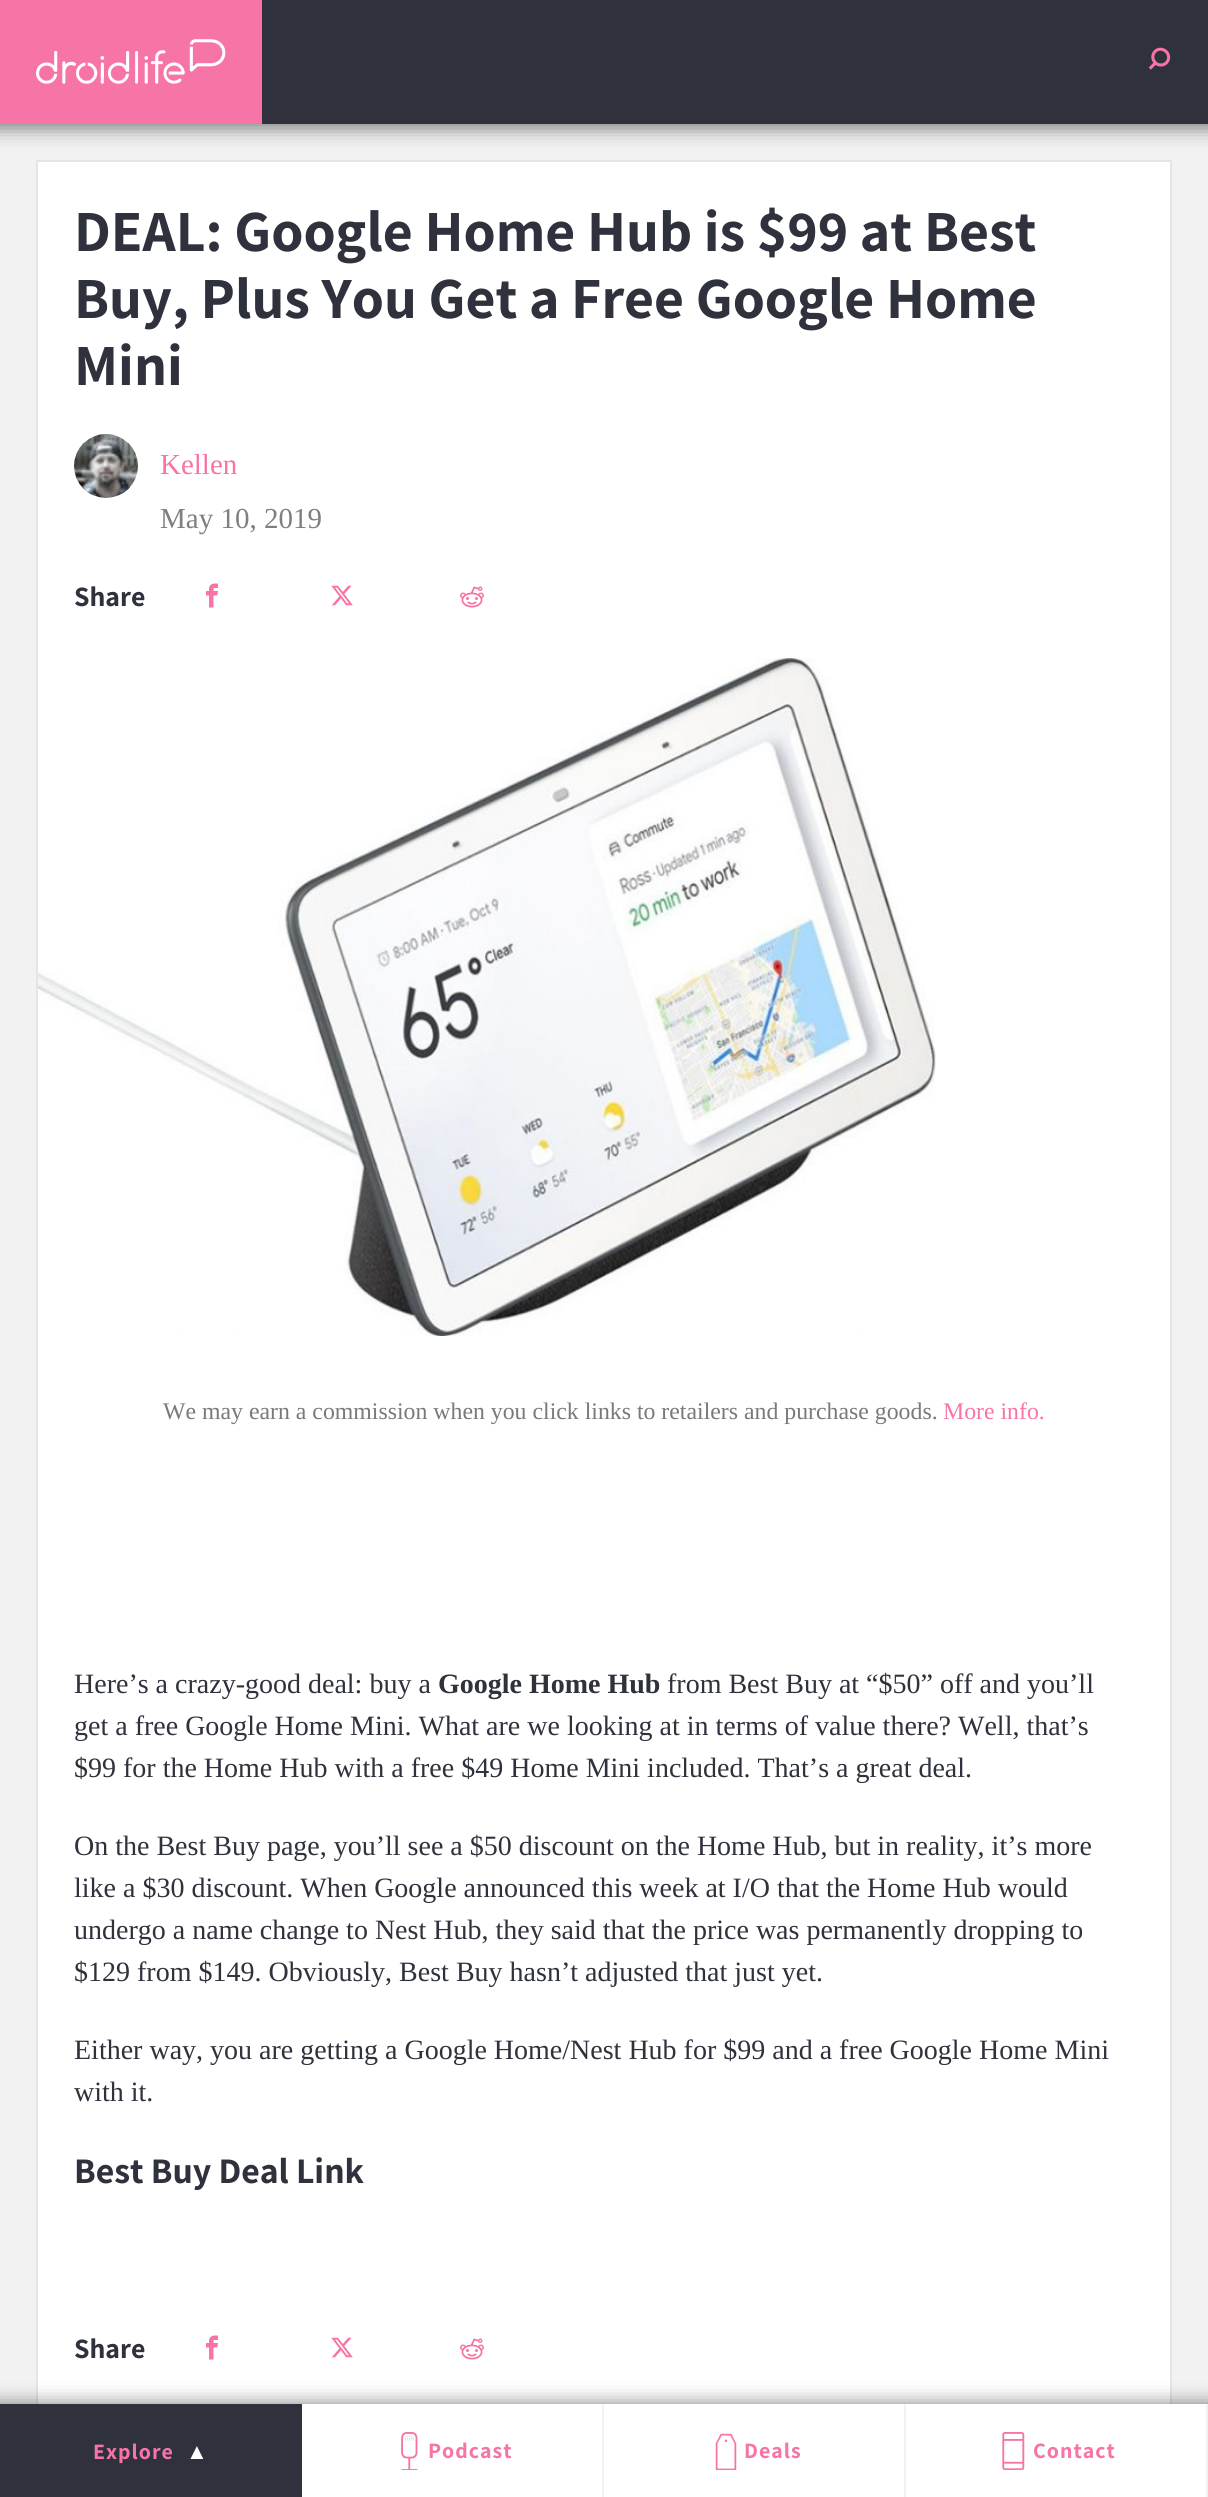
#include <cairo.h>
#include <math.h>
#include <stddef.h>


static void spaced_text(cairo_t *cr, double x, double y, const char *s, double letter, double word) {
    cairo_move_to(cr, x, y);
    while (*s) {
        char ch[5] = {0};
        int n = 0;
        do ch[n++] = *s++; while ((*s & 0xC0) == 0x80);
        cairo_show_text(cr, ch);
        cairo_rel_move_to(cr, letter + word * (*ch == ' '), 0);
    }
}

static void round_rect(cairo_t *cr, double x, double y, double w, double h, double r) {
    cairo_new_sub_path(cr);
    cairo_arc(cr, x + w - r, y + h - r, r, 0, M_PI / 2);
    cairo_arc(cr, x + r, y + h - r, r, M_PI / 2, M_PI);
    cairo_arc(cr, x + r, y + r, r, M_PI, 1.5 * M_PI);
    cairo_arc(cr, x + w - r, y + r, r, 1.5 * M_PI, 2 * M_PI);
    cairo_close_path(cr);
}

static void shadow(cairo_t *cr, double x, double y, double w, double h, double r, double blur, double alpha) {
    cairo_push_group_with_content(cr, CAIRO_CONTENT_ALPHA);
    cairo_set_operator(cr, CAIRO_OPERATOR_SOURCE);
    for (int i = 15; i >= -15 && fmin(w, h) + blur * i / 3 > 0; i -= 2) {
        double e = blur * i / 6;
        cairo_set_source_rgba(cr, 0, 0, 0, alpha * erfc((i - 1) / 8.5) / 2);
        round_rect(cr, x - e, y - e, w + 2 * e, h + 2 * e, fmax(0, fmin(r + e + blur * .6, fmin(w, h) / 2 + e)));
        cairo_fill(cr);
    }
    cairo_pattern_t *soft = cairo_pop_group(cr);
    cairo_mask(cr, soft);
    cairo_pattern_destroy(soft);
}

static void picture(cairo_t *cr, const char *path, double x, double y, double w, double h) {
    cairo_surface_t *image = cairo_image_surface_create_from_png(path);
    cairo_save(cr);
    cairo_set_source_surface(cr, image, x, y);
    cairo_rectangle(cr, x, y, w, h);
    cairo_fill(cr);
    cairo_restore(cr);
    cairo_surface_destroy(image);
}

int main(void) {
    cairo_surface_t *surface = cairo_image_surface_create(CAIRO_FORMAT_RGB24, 1208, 2497);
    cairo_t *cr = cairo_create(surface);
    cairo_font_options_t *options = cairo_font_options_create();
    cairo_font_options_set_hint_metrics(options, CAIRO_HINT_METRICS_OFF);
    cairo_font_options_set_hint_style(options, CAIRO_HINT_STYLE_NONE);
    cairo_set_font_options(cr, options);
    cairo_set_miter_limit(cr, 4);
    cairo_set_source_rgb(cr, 0.949, 0.949, 0.953);
    cairo_paint(cr);
    cairo_set_source_rgb(cr, 1, 1, 1);
    cairo_rectangle(cr, 38, 162, 1132, 2242);
    cairo_fill(cr);
    cairo_rectangle(cr, 37, 161, 1134, 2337);
    cairo_set_source_rgb(cr, 0.898, 0.898, 0.902);
    cairo_stroke(cr);
    cairo_select_font_face(cr, "Assistant ExtraLight", CAIRO_FONT_SLANT_NORMAL, CAIRO_FONT_WEIGHT_NORMAL);
    cairo_set_font_size(cr, 58.25);
    cairo_set_source_rgb(cr, 0.184, 0.192, 0.235);
    cairo_move_to(cr, 74, 251);
    cairo_show_text(cr, "DEAL: Google Home Hub is $99 at Best");
    cairo_move_to(cr, 74, 318);
    cairo_show_text(cr, "Buy, Plus You Get a Free Google Home");
    cairo_move_to(cr, 74, 385);
    cairo_show_text(cr, "Mini");
    picture(cr, "img1.png", 74, 434, 64, 64);
    cairo_select_font_face(cr, "Liberation Serif", CAIRO_FONT_SLANT_NORMAL, CAIRO_FONT_WEIGHT_NORMAL);
    cairo_set_font_size(cr, 29);
    cairo_set_source_rgb(cr, 0.965, 0.455, 0.651);
    cairo_move_to(cr, 160, 474);
    cairo_show_text(cr, "Kellen");
    cairo_set_source_rgb(cr, 0.494, 0.498, 0.506);
    cairo_move_to(cr, 160, 528);
    cairo_show_text(cr, "May 10, 2019");
    cairo_select_font_face(cr, "Assistant ExtraLight", CAIRO_FONT_SLANT_NORMAL, CAIRO_FONT_WEIGHT_NORMAL);
    cairo_set_font_size(cr, 28);
    cairo_set_source_rgb(cr, 0.184, 0.192, 0.235);
    cairo_move_to(cr, 74, 606);
    cairo_show_text(cr, "Share");
    picture(cr, "img2.png", 206, 583, 12, 25);
    picture(cr, "img3.png", 331, 585, 22, 21);
    picture(cr, "img4.png", 460, 586, 24, 22);
    picture(cr, "img5.png", 38, 658, 898, 678);
    cairo_select_font_face(cr, "Liberation Serif", CAIRO_FONT_SLANT_NORMAL, CAIRO_FONT_WEIGHT_NORMAL);
    cairo_set_font_size(cr, 23.8);
    cairo_set_source_rgb(cr, 0.475, 0.475, 0.475);
    cairo_move_to(cr, 163, 1419);
    cairo_show_text(cr, "We may earn a commission when you click links to retailers and purchase goods.");
    cairo_set_source_rgb(cr, 0.965, 0.455, 0.651);
    cairo_move_to(cr, 943, 1419);
    cairo_show_text(cr, "More info.");
    cairo_set_font_size(cr, 28);
    cairo_set_source_rgb(cr, 0.184, 0.192, 0.235);
    cairo_move_to(cr, 74, 1693);
    cairo_show_text(cr, "Here’s a crazy-good deal: buy a");
    cairo_select_font_face(cr, "Liberation Serif", CAIRO_FONT_SLANT_NORMAL, CAIRO_FONT_WEIGHT_BOLD);
    cairo_move_to(cr, 438, 1693);
    cairo_show_text(cr, "Google Home Hub");
    cairo_select_font_face(cr, "Liberation Serif", CAIRO_FONT_SLANT_NORMAL, CAIRO_FONT_WEIGHT_NORMAL);
    cairo_move_to(cr, 667, 1693);
    cairo_show_text(cr, "from Best Buy at “$50” off and you’ll");
    cairo_move_to(cr, 74, 1735);
    cairo_show_text(cr, "get a free Google Home Mini. What are we looking at in terms of value there? Well, that’s");
    cairo_move_to(cr, 74, 1777);
    cairo_show_text(cr, "$99 for the Home Hub with a free $49 Home Mini included. That’s a great deal.");
    cairo_move_to(cr, 74, 1855);
    cairo_show_text(cr, "On the Best Buy page, you’ll see a $50 discount on the Home Hub, but in reality, it’s more");
    cairo_move_to(cr, 74, 1897);
    cairo_show_text(cr, "like a $30 discount. When Google announced this week at I/O that the Home Hub would");
    cairo_move_to(cr, 74, 1939);
    cairo_show_text(cr, "undergo a name change to Nest Hub, they said that the price was permanently dropping to");
    cairo_move_to(cr, 74, 1981);
    cairo_show_text(cr, "$129 from $149. Obviously, Best Buy hasn’t adjusted that just yet.");
    cairo_move_to(cr, 74, 2059);
    cairo_show_text(cr, "Either way, you are getting a Google Home/Nest Hub for $99 and a free Google Home Mini");
    cairo_move_to(cr, 74, 2101);
    cairo_show_text(cr, "with it.");
    cairo_select_font_face(cr, "Assistant ExtraLight", CAIRO_FONT_SLANT_NORMAL, CAIRO_FONT_WEIGHT_NORMAL);
    cairo_set_font_size(cr, 36);
    cairo_move_to(cr, 74, 2183);
    cairo_show_text(cr, "Best Buy Deal Link");
    cairo_set_font_size(cr, 28);
    cairo_move_to(cr, 74, 2358);
    cairo_show_text(cr, "Share");
    picture(cr, "img2.png", 206, 2335, 12, 25);
    picture(cr, "img3.png", 331, 2337, 22, 21);
    picture(cr, "img4.png", 460, 2338, 24, 22);
    cairo_set_source_rgb(cr, 0, 0, 0);
    shadow(cr, -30, -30, 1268, 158, 0, 10, 0.5);
    cairo_set_source_rgb(cr, 0.965, 0.455, 0.651);
    cairo_rectangle(cr, 0, 0, 262, 124);
    cairo_fill(cr);
    picture(cr, "img6.png", 36, 39, 190, 45);
    cairo_set_source_rgb(cr, 0.184, 0.192, 0.235);
    cairo_rectangle(cr, 262, 0, 946, 124);
    cairo_fill(cr);
    picture(cr, "img7.png", 1148, 47, 23, 23);
    cairo_set_source_rgb(cr, 0, 0, 0);
    shadow(cr, -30, 2404, 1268, 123, 0, 10, 0.5);
    cairo_set_source_rgb(cr, 1, 1, 1);
    cairo_rectangle(cr, 302, 2404, 904, 93);
    cairo_fill(cr);
    cairo_set_source_rgb(cr, 0.184, 0.192, 0.235);
    cairo_rectangle(cr, 0, 2404, 302, 93);
    cairo_fill(cr);
    cairo_set_font_size(cr, 22);
    cairo_set_source_rgb(cr, 0.965, 0.455, 0.651);
    spaced_text(cr, 93, 2459, "Explore", 1, 0);
    cairo_select_font_face(cr, "Liberation Sans", CAIRO_FONT_SLANT_NORMAL, CAIRO_FONT_WEIGHT_NORMAL);
    cairo_set_source_rgb(cr, 1, 1, 1);
    spaced_text(cr, 186, 2459, "▲", 1, 0);
    cairo_set_source_rgb(cr, 0.949, 0.949, 0.953);
    cairo_rectangle(cr, 602, 2404, 2, 93);
    cairo_fill(cr);
    picture(cr, "img8.png", 401, 2432, 17, 38);
    cairo_select_font_face(cr, "Assistant ExtraLight", CAIRO_FONT_SLANT_NORMAL, CAIRO_FONT_WEIGHT_NORMAL);
    cairo_set_source_rgb(cr, 0.965, 0.455, 0.651);
    spaced_text(cr, 428, 2458, "Podcast", 1, 0);
    cairo_set_source_rgb(cr, 0.949, 0.949, 0.953);
    cairo_rectangle(cr, 904, 2404, 2, 93);
    cairo_fill(cr);
    picture(cr, "img9.png", 715, 2433, 22, 37);
    cairo_set_source_rgb(cr, 0.965, 0.455, 0.651);
    spaced_text(cr, 744, 2458, "Deals", 1, 0);
    cairo_set_source_rgb(cr, 0.949, 0.949, 0.953);
    cairo_rectangle(cr, 1206, 2404, 2, 93);
    cairo_fill(cr);
    picture(cr, "img10.png", 1002, 2432, 23, 38);
    cairo_set_source_rgb(cr, 0.965, 0.455, 0.651);
    spaced_text(cr, 1033, 2458, "Contact", 1, 0);
    cairo_surface_write_to_png(surface, "page.png");
    cairo_font_options_destroy(options);
    cairo_destroy(cr);
    cairo_surface_destroy(surface);
    return 0;
}
